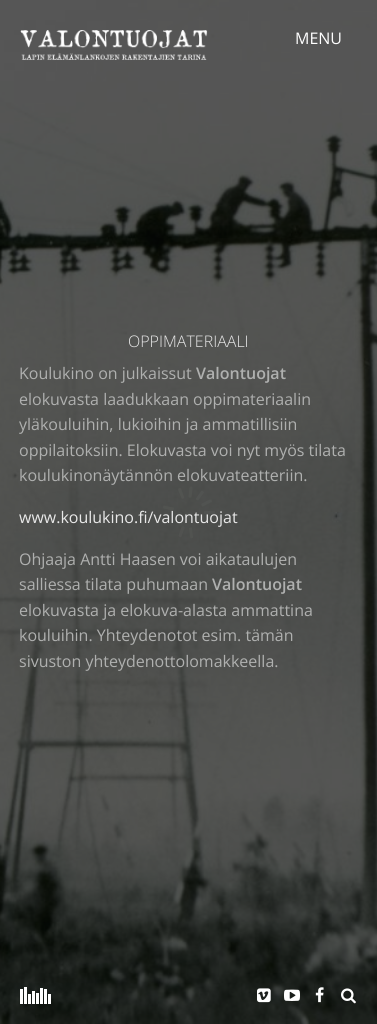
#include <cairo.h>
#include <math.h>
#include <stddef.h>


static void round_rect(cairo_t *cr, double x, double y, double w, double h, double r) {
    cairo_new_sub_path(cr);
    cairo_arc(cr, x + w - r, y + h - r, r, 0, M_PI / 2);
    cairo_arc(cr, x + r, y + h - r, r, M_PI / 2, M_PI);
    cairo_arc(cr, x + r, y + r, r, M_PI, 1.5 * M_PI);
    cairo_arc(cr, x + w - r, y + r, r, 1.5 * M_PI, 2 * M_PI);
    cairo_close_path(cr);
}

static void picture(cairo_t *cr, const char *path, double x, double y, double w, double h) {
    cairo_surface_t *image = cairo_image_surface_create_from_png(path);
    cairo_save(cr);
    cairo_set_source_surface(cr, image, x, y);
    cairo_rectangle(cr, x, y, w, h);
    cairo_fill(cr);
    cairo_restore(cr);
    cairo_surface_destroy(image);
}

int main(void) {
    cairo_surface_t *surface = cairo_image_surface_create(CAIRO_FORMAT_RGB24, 377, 1024);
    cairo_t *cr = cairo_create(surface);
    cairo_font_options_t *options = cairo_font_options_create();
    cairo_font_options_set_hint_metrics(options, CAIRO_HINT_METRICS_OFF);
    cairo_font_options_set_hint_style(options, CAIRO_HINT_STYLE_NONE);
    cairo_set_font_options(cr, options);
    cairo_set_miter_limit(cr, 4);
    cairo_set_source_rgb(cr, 1, 1, 1);
    cairo_paint(cr);
    picture(cr, "img1.png", 0, 0, 377, 1024);
    picture(cr, "img2.png", 20, 30, 188, 30);
    cairo_select_font_face(cr, "Open Sans", CAIRO_FONT_SLANT_NORMAL, CAIRO_FONT_WEIGHT_NORMAL);
    cairo_set_font_size(cr, 16);
    cairo_set_source_rgb(cr, 1, 1, 1);
    cairo_move_to(cr, 295, 44);
    cairo_show_text(cr, "MENU");
    cairo_select_font_face(cr, "Open Sans Light", CAIRO_FONT_SLANT_NORMAL, CAIRO_FONT_WEIGHT_NORMAL);
    cairo_set_source_rgb(cr, 0.91, 0.91, 0.91);
    cairo_move_to(cr, 128, 347);
    cairo_show_text(cr, "OPPIMATERIAALI");
    cairo_select_font_face(cr, "Open Sans", CAIRO_FONT_SLANT_NORMAL, CAIRO_FONT_WEIGHT_NORMAL);
    cairo_set_source_rgb(cr, 0.686, 0.69, 0.686);
    cairo_move_to(cr, 19, 379);
    cairo_show_text(cr, "Koulukino on julkaissut");
    cairo_select_font_face(cr, "Open Sans SemiBold", CAIRO_FONT_SLANT_NORMAL, CAIRO_FONT_WEIGHT_NORMAL);
    cairo_move_to(cr, 196, 379);
    cairo_show_text(cr, "Valontuojat");
    cairo_select_font_face(cr, "Open Sans", CAIRO_FONT_SLANT_NORMAL, CAIRO_FONT_WEIGHT_NORMAL);
    cairo_move_to(cr, 19, 405);
    cairo_show_text(cr, "elokuvasta laadukkaan oppimateriaalin");
    cairo_move_to(cr, 19, 430);
    cairo_show_text(cr, "yläkouluihin, lukioihin ja ammatillisiin");
    cairo_move_to(cr, 19, 456);
    cairo_show_text(cr, "oppilaitoksiin. Elokuvasta voi nyt myös tilata");
    cairo_move_to(cr, 19, 481);
    cairo_show_text(cr, "koulukinonäytännön elokuvateatteriin.");
    cairo_set_source_rgb(cr, 0.91, 0.91, 0.91);
    cairo_move_to(cr, 19, 523);
    cairo_show_text(cr, "www.koulukino.fi/valontuojat");
    cairo_set_source_rgb(cr, 0.686, 0.69, 0.686);
    cairo_move_to(cr, 19, 565);
    cairo_show_text(cr, "Ohjaaja Antti Haasen voi aikataulujen");
    cairo_move_to(cr, 19, 590);
    cairo_show_text(cr, "salliessa tilata puhumaan");
    cairo_select_font_face(cr, "Open Sans SemiBold", CAIRO_FONT_SLANT_NORMAL, CAIRO_FONT_WEIGHT_NORMAL);
    cairo_move_to(cr, 212, 590);
    cairo_show_text(cr, "Valontuojat");
    cairo_select_font_face(cr, "Open Sans", CAIRO_FONT_SLANT_NORMAL, CAIRO_FONT_WEIGHT_NORMAL);
    cairo_move_to(cr, 19, 616);
    cairo_show_text(cr, "elokuvasta ja elokuva-alasta ammattina");
    cairo_move_to(cr, 19, 641);
    cairo_show_text(cr, "kouluihin. Yhteydenotot esim. tämän");
    cairo_move_to(cr, 19, 667);
    cairo_show_text(cr, "sivuston yhteydenottolomakkeella.");
    cairo_set_source_rgb(cr, 0.322, 0.329, 0.318);
    cairo_new_path(cr);
    cairo_move_to(cr, 181.5, 498);
    cairo_line_to(cr, 178.5, 491);
    cairo_curve_to(cr, 178, 489.5, 177.5, 488.5, 180, 488);
    cairo_line_to(cr, 181, 488.5);
    cairo_line_to(cr, 184, 497);
    cairo_curve_to(cr, 184.5, 498.5, 182, 499.5, 181.5, 498);
    cairo_close_path(cr);
    cairo_fill(cr);
    cairo_set_source_rgb(cr, 0.318, 0.325, 0.314);
    cairo_new_path(cr);
    cairo_move_to(cr, 188.5, 496.5);
    cairo_line_to(cr, 189.5, 487.5);
    cairo_line_to(cr, 190.5, 486.5);
    cairo_curve_to(cr, 192.5, 486.5, 192.5, 487.5, 192.5, 489.5);
    cairo_line_to(cr, 191.5, 497);
    cairo_curve_to(cr, 191, 498, 188.5, 498, 188.5, 496.5);
    cairo_close_path(cr);
    cairo_fill(cr);
    cairo_set_source_rgb(cr, 0.318, 0.325, 0.318);
    cairo_new_path(cr);
    cairo_move_to(cr, 196, 498.5);
    cairo_line_to(cr, 200.5, 492);
    cairo_curve_to(cr, 201.5, 490.5, 202, 490, 203.5, 491.5);
    cairo_line_to(cr, 204, 492.5);
    cairo_line_to(cr, 198.5, 500);
    cairo_curve_to(cr, 197.5, 501, 195.5, 499.5, 196, 498.5);
    cairo_close_path(cr);
    cairo_fill(cr);
    cairo_new_path(cr);
    cairo_move_to(cr, 202, 503.5);
    cairo_line_to(cr, 208.5, 500);
    cairo_curve_to(cr, 210, 499.5, 211, 499, 212, 501);
    cairo_line_to(cr, 211.5, 502);
    cairo_line_to(cr, 203, 506.5);
    cairo_curve_to(cr, 202, 507, 200.5, 504.5, 202, 503.5);
    cairo_close_path(cr);
    cairo_fill(cr);
    cairo_set_source_rgb(cr, 0.318, 0.325, 0.314);
    cairo_new_path(cr);
    cairo_move_to(cr, 172.5, 510.5);
    cairo_line_to(cr, 163.5, 508.5);
    cairo_line_to(cr, 163, 507.5);
    cairo_curve_to(cr, 163, 505, 164, 505.5, 166, 506);
    cairo_line_to(cr, 173.5, 507.5);
    cairo_curve_to(cr, 174.5, 508, 174, 510.5, 172.5, 510.5);
    cairo_close_path(cr);
    cairo_fill(cr);
    cairo_set_source_rgb(cr, 0.318, 0.325, 0.318);
    round_rect(cr, 204, 511, 11, 3, 1);
    cairo_fill(cr);
    cairo_set_source_rgb(cr, 0.318, 0.322, 0.314);
    cairo_new_path(cr);
    cairo_move_to(cr, 184.5, 528);
    cairo_line_to(cr, 182, 535);
    cairo_curve_to(cr, 181.5, 537, 181, 538, 179, 536.5);
    cairo_line_to(cr, 178.5, 535.5);
    cairo_line_to(cr, 181.5, 527);
    cairo_curve_to(cr, 182.5, 525.5, 185, 526.5, 184.5, 528);
    cairo_close_path(cr);
    cairo_fill(cr);
    cairo_set_source_rgb(cr, 0.318, 0.325, 0.314);
    cairo_new_path(cr);
    cairo_move_to(cr, 192, 528);
    cairo_line_to(cr, 193, 537.5);
    cairo_line_to(cr, 192.5, 538);
    cairo_curve_to(cr, 190.5, 539, 190, 538, 190, 536);
    cairo_line_to(cr, 189, 528.5);
    cairo_curve_to(cr, 189, 527, 192, 527, 192, 528);
    cairo_close_path(cr);
    cairo_fill(cr);
    cairo_set_source_rgb(cr, 1, 1, 1);
    cairo_rectangle(cr, 20, 989, 3, 15);
    cairo_fill(cr);
    cairo_rectangle(cr, 24, 987, 3, 17);
    cairo_fill(cr);
    cairo_rectangle(cr, 28, 994, 3, 10);
    cairo_fill(cr);
    cairo_rectangle(cr, 32, 991, 3, 13);
    cairo_fill(cr);
    cairo_rectangle(cr, 36, 993, 3, 11);
    cairo_fill(cr);
    cairo_rectangle(cr, 40, 988, 3, 16);
    cairo_fill(cr);
    cairo_rectangle(cr, 44, 989, 3, 15);
    cairo_fill(cr);
    cairo_rectangle(cr, 48, 994, 3, 10);
    cairo_fill(cr);
    picture(cr, "img3.png", 257, 988, 14, 15);
    picture(cr, "img4.png", 284, 989, 16, 12);
    picture(cr, "img5.png", 315, 987, 9, 16);
    picture(cr, "img6.png", 341, 988, 15, 16);
    cairo_surface_write_to_png(surface, "page.png");
    cairo_font_options_destroy(options);
    cairo_destroy(cr);
    cairo_surface_destroy(surface);
    return 0;
}
